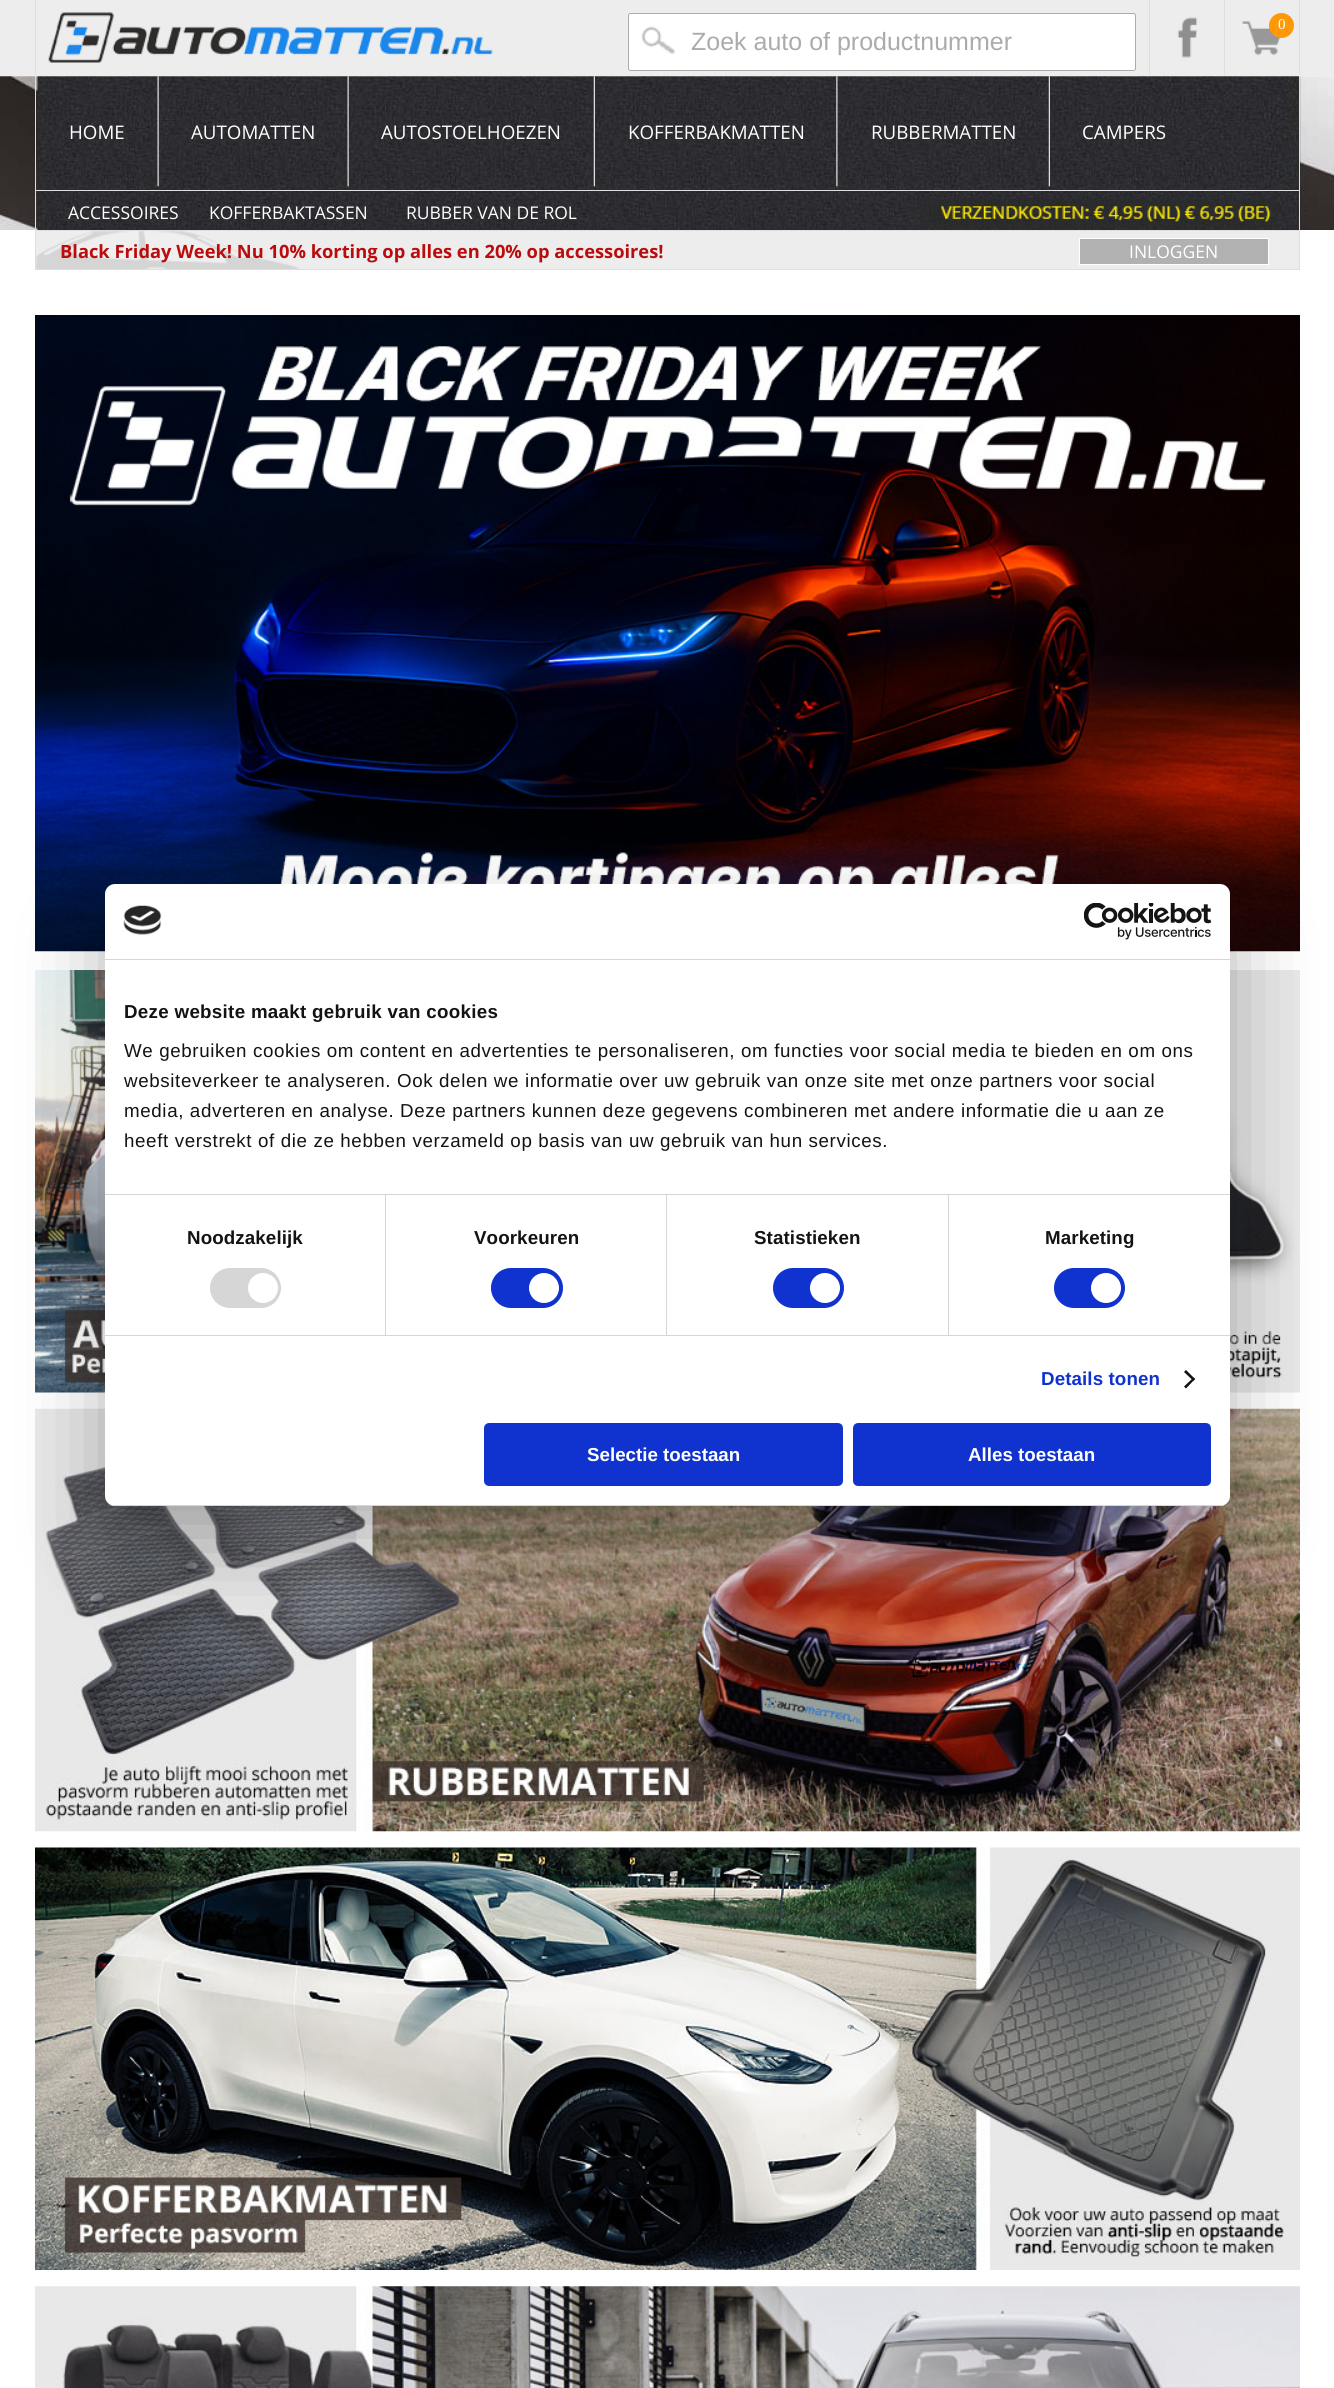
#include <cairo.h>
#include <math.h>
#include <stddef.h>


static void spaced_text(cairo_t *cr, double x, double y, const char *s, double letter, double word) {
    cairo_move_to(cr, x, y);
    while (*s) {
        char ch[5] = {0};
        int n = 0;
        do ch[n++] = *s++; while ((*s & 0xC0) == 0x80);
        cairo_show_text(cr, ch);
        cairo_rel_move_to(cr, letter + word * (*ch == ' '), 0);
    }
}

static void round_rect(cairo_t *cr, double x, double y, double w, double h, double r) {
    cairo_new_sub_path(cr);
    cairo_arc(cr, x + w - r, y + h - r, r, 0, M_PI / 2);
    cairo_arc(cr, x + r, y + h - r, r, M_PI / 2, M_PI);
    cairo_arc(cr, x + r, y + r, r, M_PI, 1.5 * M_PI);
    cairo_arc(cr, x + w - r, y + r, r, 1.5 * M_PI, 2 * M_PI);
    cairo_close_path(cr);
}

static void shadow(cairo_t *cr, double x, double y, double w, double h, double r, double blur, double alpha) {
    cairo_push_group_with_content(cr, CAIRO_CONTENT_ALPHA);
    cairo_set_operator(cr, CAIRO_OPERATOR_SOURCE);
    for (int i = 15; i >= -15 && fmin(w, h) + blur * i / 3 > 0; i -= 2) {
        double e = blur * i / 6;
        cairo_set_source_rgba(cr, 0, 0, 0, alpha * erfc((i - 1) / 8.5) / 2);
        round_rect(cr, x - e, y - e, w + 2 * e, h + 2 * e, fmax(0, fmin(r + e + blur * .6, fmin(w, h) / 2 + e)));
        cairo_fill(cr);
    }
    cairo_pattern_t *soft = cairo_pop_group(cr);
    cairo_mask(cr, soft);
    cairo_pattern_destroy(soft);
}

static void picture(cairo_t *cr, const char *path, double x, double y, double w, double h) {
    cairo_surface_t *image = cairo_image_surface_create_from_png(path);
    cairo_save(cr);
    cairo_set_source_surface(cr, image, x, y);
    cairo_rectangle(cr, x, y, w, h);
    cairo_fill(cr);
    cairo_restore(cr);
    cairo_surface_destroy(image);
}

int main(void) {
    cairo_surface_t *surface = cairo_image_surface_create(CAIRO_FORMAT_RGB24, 1334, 2388);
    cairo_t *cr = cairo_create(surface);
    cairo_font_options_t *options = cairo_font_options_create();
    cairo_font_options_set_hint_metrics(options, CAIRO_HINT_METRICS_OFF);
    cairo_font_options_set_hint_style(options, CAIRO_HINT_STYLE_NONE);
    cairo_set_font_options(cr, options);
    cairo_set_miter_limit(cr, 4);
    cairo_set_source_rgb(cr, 1, 1, 1);
    cairo_paint(cr);
    cairo_set_source_rgb(cr, 0.929, 0.929, 0.929);
    cairo_rectangle(cr, 0, 0, 1334, 76);
    cairo_fill(cr);
    cairo_set_source_rgb(cr, 0.875, 0.875, 0.875);
    cairo_rectangle(cr, 1299, 0, 1, 75);
    cairo_fill(cr);
    cairo_rectangle(cr, 35, 0, 1, 75);
    cairo_fill(cr);
    picture(cr, "img1.png", 48, 12, 445, 51);
    cairo_rectangle(cr, 1149, 0, 1, 75);
    cairo_fill(cr);
    picture(cr, "img2.png", 1177, 17, 21, 41);
    cairo_rectangle(cr, 1224, 0, 1, 75);
    cairo_fill(cr);
    picture(cr, "img3.png", 1242, 21, 40, 35);
    cairo_set_source_rgb(cr, 1, 0.596, 0.027);
    cairo_arc(cr, 1281.5, 25.5, 12.5, 0, 2 * M_PI);
    cairo_fill(cr);
    cairo_select_font_face(cr, "Liberation Serif", CAIRO_FONT_SLANT_NORMAL, CAIRO_FONT_WEIGHT_NORMAL);
    cairo_set_font_size(cr, 15);
    cairo_set_source_rgb(cr, 1, 1, 1);
    cairo_move_to(cr, 1278, 29);
    cairo_show_text(cr, "0");
    round_rect(cr, 628, 13, 508, 58, 2.5);
    cairo_fill(cr);
    picture(cr, "img4.png", 641, 26, 34, 28);
    round_rect(cr, 628.5, 13.5, 507, 57, 2);
    cairo_set_source_rgb(cr, 0.671, 0.671, 0.671);
    cairo_set_line_width(cr, 1);
    cairo_stroke(cr);
    cairo_select_font_face(cr, "Liberation Sans", CAIRO_FONT_SLANT_NORMAL, CAIRO_FONT_WEIGHT_NORMAL);
    cairo_set_font_size(cr, 25);
    cairo_move_to(cr, 691, 50);
    cairo_show_text(cr, "Zoek auto of productnummer");
    picture(cr, "img5.png", 0, 76, 1334, 154);
    cairo_select_font_face(cr, "Open Sans", CAIRO_FONT_SLANT_NORMAL, CAIRO_FONT_WEIGHT_NORMAL);
    cairo_set_font_size(cr, 18.75);
    cairo_set_source_rgb(cr, 1, 1, 1);
    cairo_move_to(cr, 69, 139);
    cairo_show_text(cr, "HOME");
    picture(cr, "img6.png", 157, 76, 2, 111);
    cairo_move_to(cr, 191, 139);
    cairo_show_text(cr, "AUTOMATTEN");
    picture(cr, "img7.png", 347, 76, 2, 111);
    cairo_move_to(cr, 381, 139);
    cairo_show_text(cr, "AUTOSTOELHOEZEN");
    picture(cr, "img8.png", 593, 76, 2, 111);
    cairo_move_to(cr, 628, 139);
    cairo_show_text(cr, "KOFFERBAKMATTEN");
    picture(cr, "img9.png", 836, 76, 2, 111);
    cairo_move_to(cr, 871, 139);
    cairo_show_text(cr, "RUBBERMATTEN");
    picture(cr, "img10.png", 1048, 76, 2, 111);
    cairo_move_to(cr, 1082, 139);
    cairo_show_text(cr, "CAMPERS");
    cairo_set_source_rgb(cr, 0.875, 0.875, 0.875);
    cairo_rectangle(cr, 35, 190, 1265, 1);
    cairo_fill(cr);
    cairo_rectangle(cr, 1299, 76, 1, 154);
    cairo_fill(cr);
    cairo_rectangle(cr, 35, 76, 1, 154);
    cairo_fill(cr);
    cairo_set_font_size(cr, 17.5);
    cairo_set_source_rgb(cr, 1, 1, 1);
    cairo_move_to(cr, 68, 219);
    cairo_show_text(cr, "ACCESSOIRES");
    cairo_move_to(cr, 209, 219);
    cairo_show_text(cr, "KOFFERBAKTASSEN");
    cairo_move_to(cr, 406, 219);
    cairo_show_text(cr, "RUBBER VAN DE ROL");
    picture(cr, "img11.png", 920, 198, 358, 30);
    cairo_set_source_rgb(cr, 0.929, 0.929, 0.929);
    cairo_rectangle(cr, 36, 231, 1263, 38);
    cairo_fill(cr);
    picture(cr, "img12.png", 36, 231, 263, 38);
    cairo_rectangle(cr, 35.5, 230.5, 1264, 39);
    cairo_set_source_rgb(cr, 0.875, 0.875, 0.875);
    cairo_stroke(cr);
    cairo_select_font_face(cr, "Open Sans", CAIRO_FONT_SLANT_NORMAL, CAIRO_FONT_WEIGHT_BOLD);
    cairo_set_font_size(cr, 18.3);
    cairo_set_source_rgb(cr, 0.729, 0.047, 0.047);
    cairo_move_to(cr, 60, 258);
    cairo_show_text(cr, "Black Friday Week! Nu 10% korting op alles en 20% op accessoires!");
    cairo_set_source_rgb(cr, 0.694, 0.694, 0.694);
    cairo_rectangle(cr, 1079.5, 238.5, 189, 26);
    cairo_fill_preserve(cr);
    cairo_set_source_rgb(cr, 1, 1, 1);
    cairo_stroke(cr);
    cairo_select_font_face(cr, "Open Sans", CAIRO_FONT_SLANT_NORMAL, CAIRO_FONT_WEIGHT_NORMAL);
    cairo_set_font_size(cr, 17.5);
    cairo_move_to(cr, 1129, 258);
    cairo_show_text(cr, "INLOGGEN");
    picture(cr, "img13.png", 35, 315, 1265, 637);
    picture(cr, "img14.png", 35, 970, 1265, 423);
    picture(cr, "img15.png", 35, 1408, 1265, 424);
    picture(cr, "img16.png", 35, 1847, 1265, 423);
    picture(cr, "img17.png", 35, 2286, 1265, 102);
    cairo_set_source_rgb(cr, 0, 0, 0);
    shadow(cr, 105, 924, 1125, 622, 10, 42.5, 0.3);
    cairo_set_source_rgb(cr, 1, 1, 1);
    round_rect(cr, 105, 884, 1125, 622, 10);
    cairo_fill(cr);
    cairo_set_source_rgb(cr, 0.839, 0.839, 0.839);
    cairo_rectangle(cr, 105, 959, 1125, 1);
    cairo_fill(cr);
    picture(cr, "img18.png", 123, 905, 39, 30);
    picture(cr, "img19.png", 1084, 903, 127, 37);
    cairo_rectangle(cr, 105, 1194, 1125, 1);
    cairo_fill(cr);
    cairo_select_font_face(cr, "Liberation Sans", CAIRO_FONT_SLANT_NORMAL, CAIRO_FONT_WEIGHT_BOLD);
    cairo_set_font_size(cr, 18.75);
    cairo_set_source_rgb(cr, 0.078, 0.078, 0.078);
    spaced_text(cr, 124, 1018, "Deze website maakt gebruik van cookies", 0.3, 0);
    cairo_select_font_face(cr, "Liberation Sans", CAIRO_FONT_SLANT_NORMAL, CAIRO_FONT_WEIGHT_NORMAL);
    spaced_text(cr, 124, 1057, "We gebruiken cookies om content en advertenties te personaliseren, om functies voor social media te bieden en om ons", 0.62, 0);
    spaced_text(cr, 124, 1087, "websiteverkeer te analyseren. Ook delen we informatie over uw gebruik van onze site met onze partners voor social", 0.62, 0);
    spaced_text(cr, 124, 1117, "media, adverteren en analyse. Deze partners kunnen deze gegevens combineren met andere informatie die u aan ze", 0.62, 0);
    spaced_text(cr, 124, 1147, "heeft verstrekt of die ze hebben verzameld op basis van uw gebruik van hun services.", 0.62, 0);
    cairo_set_source_rgb(cr, 0.839, 0.839, 0.839);
    cairo_rectangle(cr, 105, 1335, 1125, 1);
    cairo_fill(cr);
    cairo_rectangle(cr, 385, 1195, 1, 140);
    cairo_fill(cr);
    cairo_select_font_face(cr, "Liberation Sans", CAIRO_FONT_SLANT_NORMAL, CAIRO_FONT_WEIGHT_BOLD);
    cairo_set_source_rgb(cr, 0.078, 0.078, 0.078);
    spaced_text(cr, 187, 1244, "Noodzakelijk", 0.1, 0);
    cairo_set_source_rgb(cr, 0.839, 0.839, 0.839);
    round_rect(cr, 210, 1268, 71, 40, 20);
    cairo_fill(cr);
    cairo_set_source_rgb(cr, 1, 1, 1);
    cairo_arc(cr, 263, 1288, 15, 0, 2 * M_PI);
    cairo_fill(cr);
    cairo_set_source_rgb(cr, 0.839, 0.839, 0.839);
    cairo_rectangle(cr, 666, 1195, 1, 140);
    cairo_fill(cr);
    cairo_set_source_rgb(cr, 0.078, 0.078, 0.078);
    spaced_text(cr, 474, 1244, "Voorkeuren", 0.1, 0);
    cairo_set_source_rgb(cr, 0.063, 0.196, 0.812);
    round_rect(cr, 491, 1268, 72, 40, 20);
    cairo_fill(cr);
    cairo_set_source_rgb(cr, 1, 1, 1);
    cairo_arc(cr, 544, 1288, 15, 0, 2 * M_PI);
    cairo_fill(cr);
    cairo_set_source_rgb(cr, 0.839, 0.839, 0.839);
    cairo_rectangle(cr, 948, 1195, 1, 140);
    cairo_fill(cr);
    cairo_set_source_rgb(cr, 0.078, 0.078, 0.078);
    spaced_text(cr, 754, 1244, "Statistieken", 0.1, 0);
    cairo_set_source_rgb(cr, 0.063, 0.196, 0.812);
    round_rect(cr, 773, 1268, 71, 40, 20);
    cairo_fill(cr);
    cairo_set_source_rgb(cr, 1, 1, 1);
    cairo_arc(cr, 825, 1288, 15, 0, 2 * M_PI);
    cairo_fill(cr);
    cairo_set_source_rgb(cr, 0.078, 0.078, 0.078);
    spaced_text(cr, 1045, 1244, "Marketing", 0.1, 0);
    cairo_set_source_rgb(cr, 0.063, 0.196, 0.812);
    round_rect(cr, 1054, 1268, 71, 40, 20);
    cairo_fill(cr);
    cairo_set_source_rgb(cr, 1, 1, 1);
    cairo_arc(cr, 1106, 1288, 15, 0, 2 * M_PI);
    cairo_fill(cr);
    cairo_set_source_rgb(cr, 0.063, 0.196, 0.812);
    spaced_text(cr, 1041, 1385, "Details tonen", 0.1, 0);
    cairo_set_source_rgb(cr, 0.078, 0.078, 0.078);
    cairo_new_path(cr);
    cairo_move_to(cr, 1186, 1370);
    cairo_line_to(cr, 1195, 1379);
    cairo_line_to(cr, 1193.5, 1381);
    cairo_line_to(cr, 1184, 1372);
    cairo_close_path(cr);
    cairo_fill(cr);
    cairo_new_path(cr);
    cairo_move_to(cr, 1193.5, 1377.5);
    cairo_line_to(cr, 1195, 1379);
    cairo_line_to(cr, 1186, 1388.5);
    cairo_line_to(cr, 1184, 1386.5);
    cairo_close_path(cr);
    cairo_fill(cr);
    cairo_save(cr);
    round_rect(cr, 105, 884, 1125, 622, 10);
    cairo_clip(cr);
    cairo_set_source_rgb(cr, 0.839, 0.839, 0.839);
    cairo_rectangle(cr, 105, 1505, 1125, 1);
    cairo_fill(cr);
    cairo_restore(cr);
    cairo_set_source_rgb(cr, 0.063, 0.196, 0.812);
    round_rect(cr, 485.5, 1424.5, 356, 60, 3.5);
    cairo_fill_preserve(cr);
    cairo_set_line_width(cr, 3);
    cairo_stroke(cr);
    cairo_set_source_rgb(cr, 1, 1, 1);
    cairo_move_to(cr, 587, 1461);
    cairo_show_text(cr, "Selectie toestaan");
    cairo_set_source_rgb(cr, 0.063, 0.196, 0.812);
    round_rect(cr, 854.5, 1424.5, 355, 60, 3.5);
    cairo_fill_preserve(cr);
    cairo_stroke(cr);
    cairo_set_source_rgb(cr, 1, 1, 1);
    cairo_move_to(cr, 968, 1461);
    cairo_show_text(cr, "Alles toestaan");
    cairo_surface_write_to_png(surface, "page.png");
    cairo_font_options_destroy(options);
    cairo_destroy(cr);
    cairo_surface_destroy(surface);
    return 0;
}
